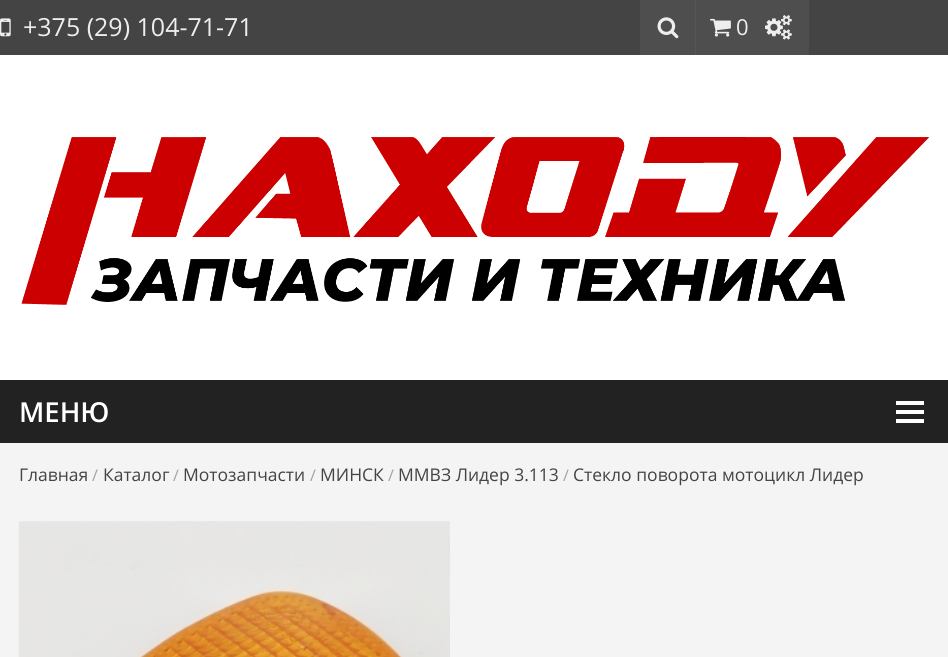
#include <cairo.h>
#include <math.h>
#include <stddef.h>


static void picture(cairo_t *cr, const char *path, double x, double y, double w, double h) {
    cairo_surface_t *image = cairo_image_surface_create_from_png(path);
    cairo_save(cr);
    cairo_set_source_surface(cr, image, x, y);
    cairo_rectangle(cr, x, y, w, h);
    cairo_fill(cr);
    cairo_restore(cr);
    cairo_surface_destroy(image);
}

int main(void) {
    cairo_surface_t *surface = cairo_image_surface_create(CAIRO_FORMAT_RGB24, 948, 657);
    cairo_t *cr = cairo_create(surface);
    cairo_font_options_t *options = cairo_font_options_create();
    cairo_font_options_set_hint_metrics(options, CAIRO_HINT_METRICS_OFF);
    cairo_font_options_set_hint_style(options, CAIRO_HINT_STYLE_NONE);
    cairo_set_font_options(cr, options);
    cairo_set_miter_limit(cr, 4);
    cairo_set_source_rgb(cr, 0.957, 0.957, 0.957);
    cairo_paint(cr);
    cairo_set_source_rgb(cr, 0.267, 0.267, 0.267);
    cairo_rectangle(cr, 0, 0, 948, 55);
    cairo_fill(cr);
    cairo_set_source_rgb(cr, 0.306, 0.306, 0.306);
    cairo_rectangle(cr, 640, 0, 55, 55);
    cairo_fill(cr);
    picture(cr, "img1.png", 0, 18, 11, 19);
    cairo_select_font_face(cr, "Open Sans", CAIRO_FONT_SLANT_NORMAL, CAIRO_FONT_WEIGHT_NORMAL);
    cairo_set_font_size(cr, 25);
    cairo_set_source_rgb(cr, 0.933, 0.933, 0.933);
    cairo_move_to(cr, 23, 36);
    cairo_show_text(cr, "+375 (29) 104-71-71");
    picture(cr, "img2.png", 657, 17, 22, 22);
    cairo_set_source_rgb(cr, 0.306, 0.306, 0.306);
    cairo_rectangle(cr, 696, 0, 113, 55);
    cairo_fill(cr);
    cairo_set_source_rgb(cr, 0.333, 0.333, 0.333);
    cairo_rectangle(cr, 695, 0, 1, 55);
    cairo_fill(cr);
    picture(cr, "img3.png", 710, 18, 21, 19);
    cairo_set_font_size(cr, 22);
    cairo_set_source_rgb(cr, 0.933, 0.933, 0.933);
    cairo_move_to(cr, 736, 35);
    cairo_show_text(cr, "0");
    picture(cr, "img4.png", 765, 15, 27, 25);
    cairo_set_source_rgb(cr, 1, 1, 1);
    cairo_rectangle(cr, 0, 55, 948, 325);
    cairo_fill(cr);
    picture(cr, "img5.png", 21, 137, 909, 168);
    cairo_set_source_rgb(cr, 0.133, 0.133, 0.133);
    cairo_rectangle(cr, 0, 380, 948, 63);
    cairo_fill(cr);
    cairo_select_font_face(cr, "Open Sans SemiBold", CAIRO_FONT_SLANT_NORMAL, CAIRO_FONT_WEIGHT_NORMAL);
    cairo_set_font_size(cr, 27.5);
    cairo_set_source_rgb(cr, 1, 1, 1);
    cairo_move_to(cr, 19, 422);
    cairo_show_text(cr, "МЕНЮ");
    cairo_rectangle(cr, 896, 401, 28, 4);
    cairo_fill(cr);
    cairo_rectangle(cr, 896, 410, 28, 4);
    cairo_fill(cr);
    cairo_rectangle(cr, 896, 419, 28, 4);
    cairo_fill(cr);
    cairo_select_font_face(cr, "Open Sans", CAIRO_FONT_SLANT_NORMAL, CAIRO_FONT_WEIGHT_NORMAL);
    cairo_set_font_size(cr, 17.5);
    cairo_set_source_rgb(cr, 0.267, 0.267, 0.267);
    cairo_move_to(cr, 19, 481);
    cairo_show_text(cr, "Главная");
    cairo_set_font_size(cr, 16);
    cairo_set_source_rgb(cr, 0.635, 0.635, 0.635);
    cairo_move_to(cr, 92, 481);
    cairo_show_text(cr, "/");
    cairo_set_font_size(cr, 17.5);
    cairo_set_source_rgb(cr, 0.267, 0.267, 0.267);
    cairo_move_to(cr, 103, 481);
    cairo_show_text(cr, "Каталог");
    cairo_set_font_size(cr, 16);
    cairo_set_source_rgb(cr, 0.635, 0.635, 0.635);
    cairo_move_to(cr, 173, 481);
    cairo_show_text(cr, "/");
    cairo_set_font_size(cr, 17.5);
    cairo_set_source_rgb(cr, 0.267, 0.267, 0.267);
    cairo_move_to(cr, 183, 481);
    cairo_show_text(cr, "Мотозапчасти");
    cairo_set_font_size(cr, 16);
    cairo_set_source_rgb(cr, 0.635, 0.635, 0.635);
    cairo_move_to(cr, 310, 481);
    cairo_show_text(cr, "/");
    cairo_set_font_size(cr, 17.5);
    cairo_set_source_rgb(cr, 0.267, 0.267, 0.267);
    cairo_move_to(cr, 320, 481);
    cairo_show_text(cr, "МИНСК");
    cairo_set_font_size(cr, 16);
    cairo_set_source_rgb(cr, 0.635, 0.635, 0.635);
    cairo_move_to(cr, 388, 481);
    cairo_show_text(cr, "/");
    cairo_set_font_size(cr, 17.5);
    cairo_set_source_rgb(cr, 0.267, 0.267, 0.267);
    cairo_move_to(cr, 398, 481);
    cairo_show_text(cr, "ММВЗ Лидер 3.113");
    cairo_set_font_size(cr, 16);
    cairo_set_source_rgb(cr, 0.635, 0.635, 0.635);
    cairo_move_to(cr, 563, 481);
    cairo_show_text(cr, "/");
    cairo_set_font_size(cr, 17.5);
    cairo_set_source_rgb(cr, 0.267, 0.267, 0.267);
    cairo_move_to(cr, 573, 481);
    cairo_show_text(cr, "Стекло поворота мотоцикл Лидер");
    picture(cr, "img6.png", 18, 521, 432, 136);
    cairo_surface_write_to_png(surface, "page.png");
    cairo_font_options_destroy(options);
    cairo_destroy(cr);
    cairo_surface_destroy(surface);
    return 0;
}
